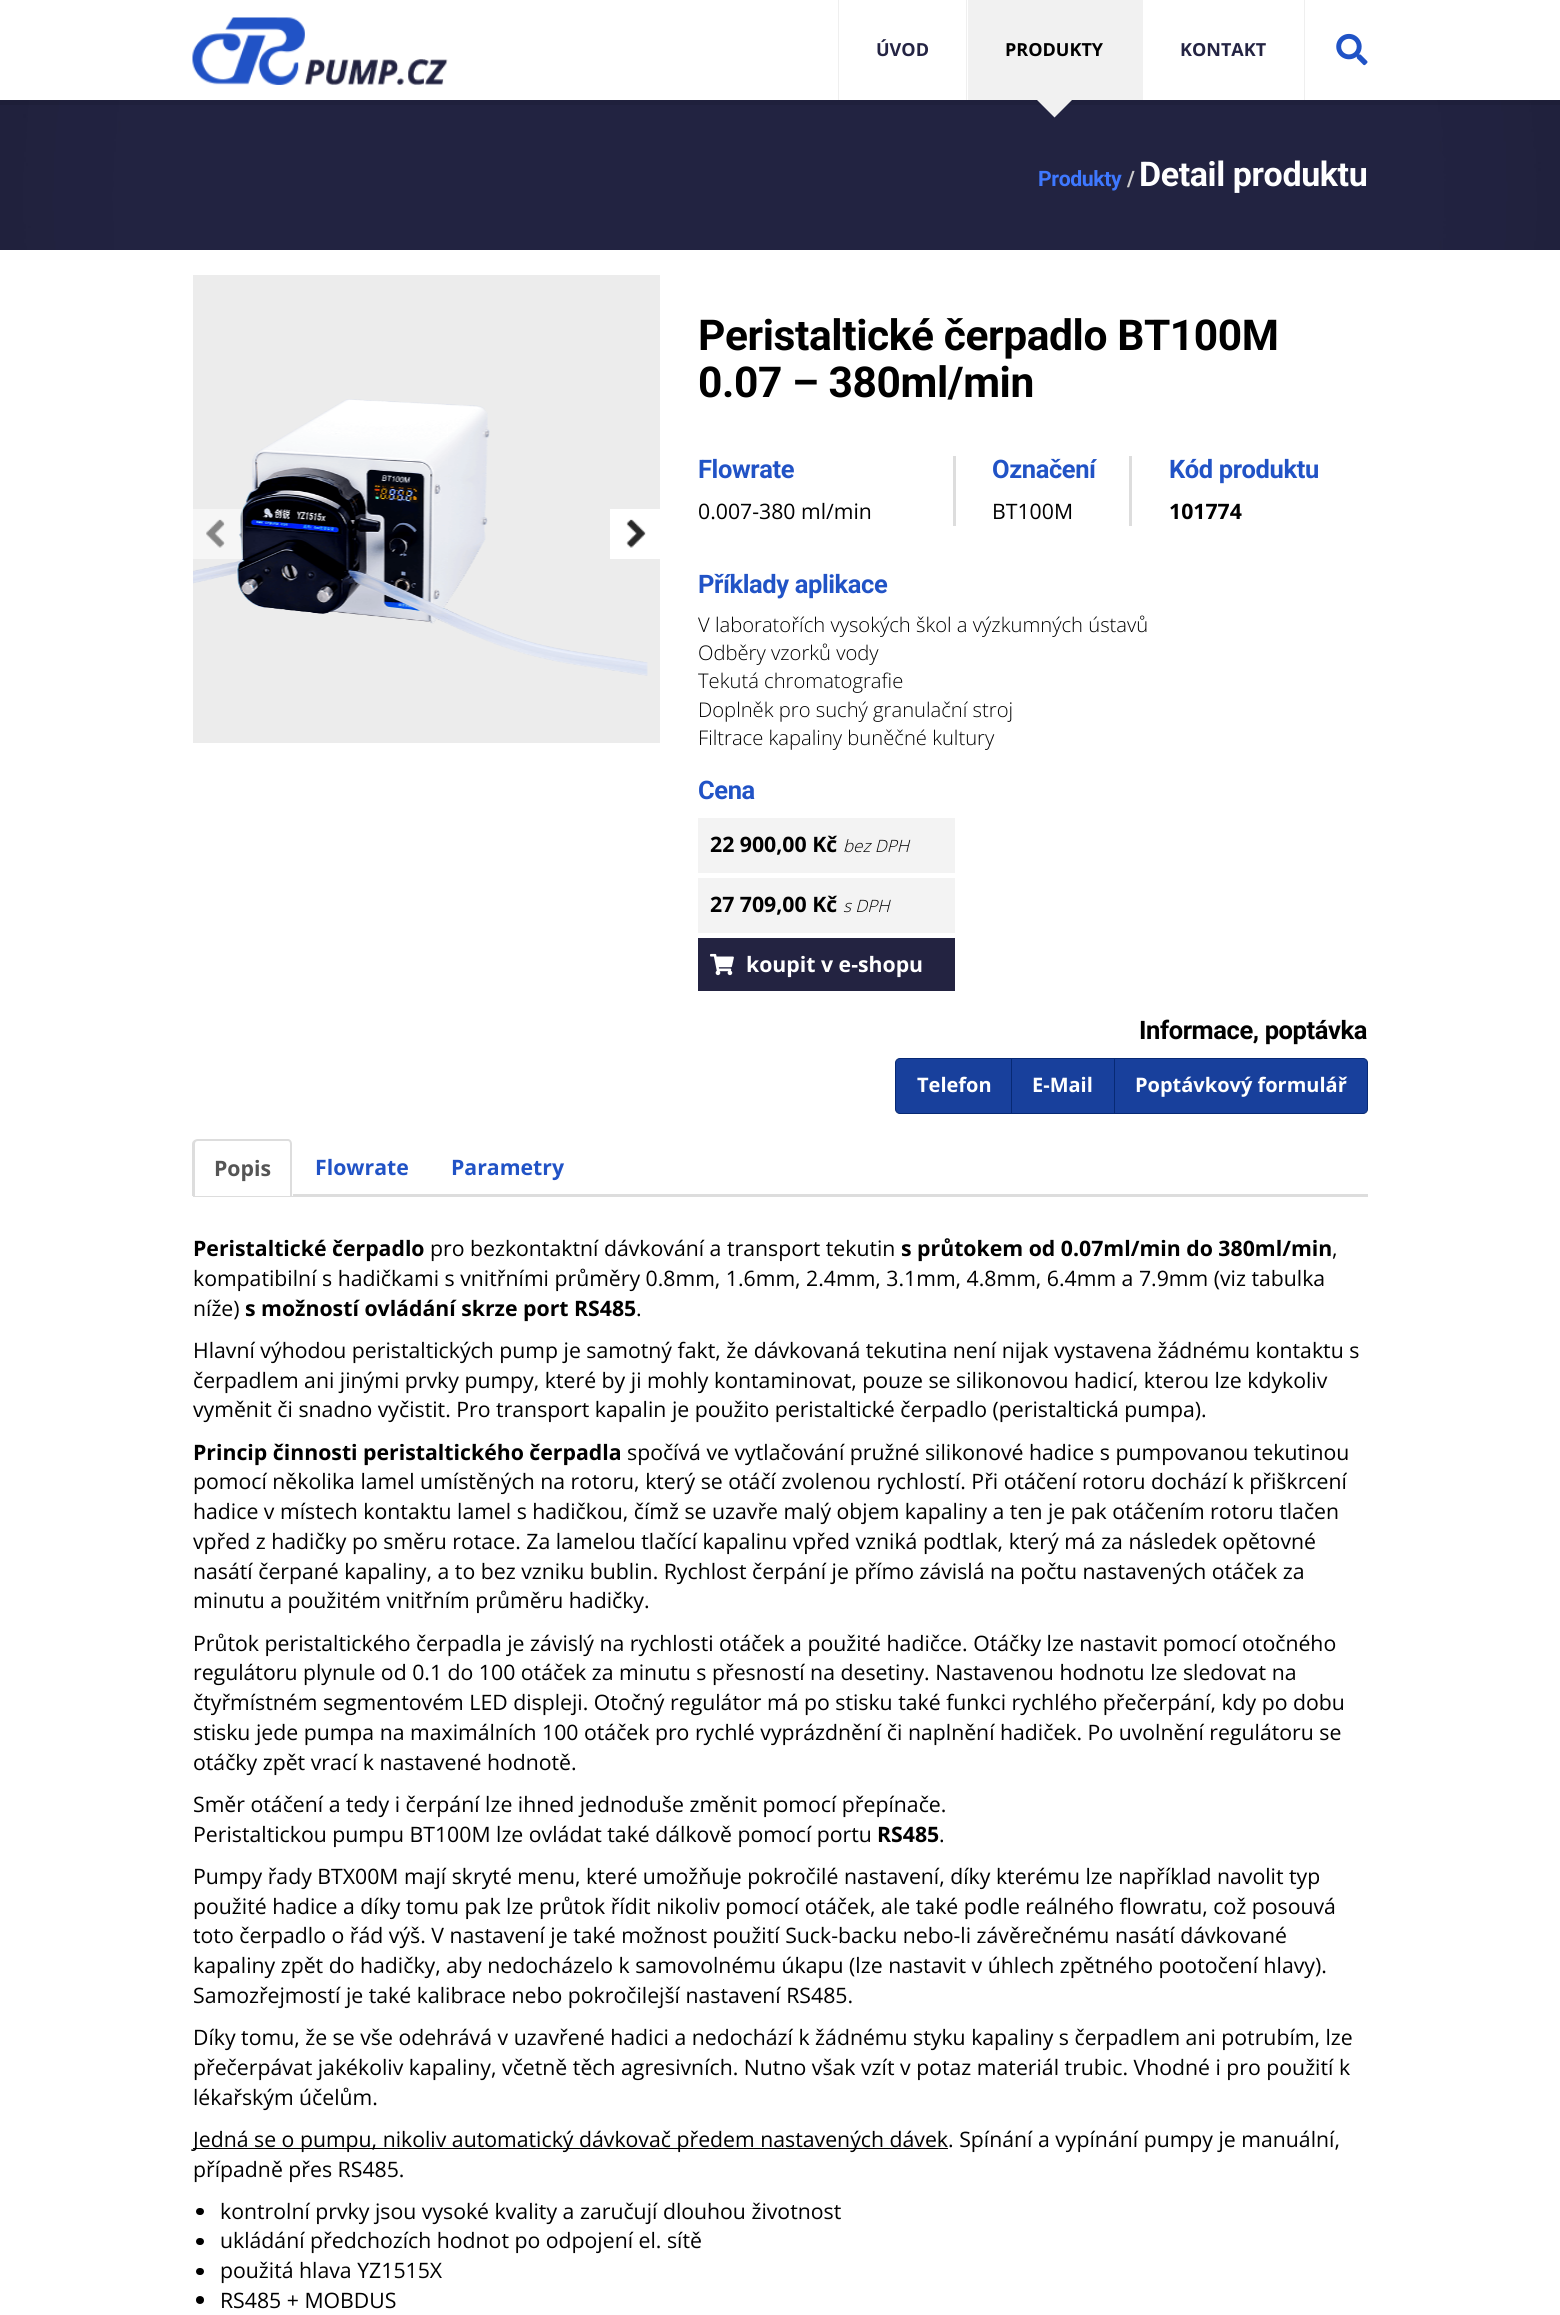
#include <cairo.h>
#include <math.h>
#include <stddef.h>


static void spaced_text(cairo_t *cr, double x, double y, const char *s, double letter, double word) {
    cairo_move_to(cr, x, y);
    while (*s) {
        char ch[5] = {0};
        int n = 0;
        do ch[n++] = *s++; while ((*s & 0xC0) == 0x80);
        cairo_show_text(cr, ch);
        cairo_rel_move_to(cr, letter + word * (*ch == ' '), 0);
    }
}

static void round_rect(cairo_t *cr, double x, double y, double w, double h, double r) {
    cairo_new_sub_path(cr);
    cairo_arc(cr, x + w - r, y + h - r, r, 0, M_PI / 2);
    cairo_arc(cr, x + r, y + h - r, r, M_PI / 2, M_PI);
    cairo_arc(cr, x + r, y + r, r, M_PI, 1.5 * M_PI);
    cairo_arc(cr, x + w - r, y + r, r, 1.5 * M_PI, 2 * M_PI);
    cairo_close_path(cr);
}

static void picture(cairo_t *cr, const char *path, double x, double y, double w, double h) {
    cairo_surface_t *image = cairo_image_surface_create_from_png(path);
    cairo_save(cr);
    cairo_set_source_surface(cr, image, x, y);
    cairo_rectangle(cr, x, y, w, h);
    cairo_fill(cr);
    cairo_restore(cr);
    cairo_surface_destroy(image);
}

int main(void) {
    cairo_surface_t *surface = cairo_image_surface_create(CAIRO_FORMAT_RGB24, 1560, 2315);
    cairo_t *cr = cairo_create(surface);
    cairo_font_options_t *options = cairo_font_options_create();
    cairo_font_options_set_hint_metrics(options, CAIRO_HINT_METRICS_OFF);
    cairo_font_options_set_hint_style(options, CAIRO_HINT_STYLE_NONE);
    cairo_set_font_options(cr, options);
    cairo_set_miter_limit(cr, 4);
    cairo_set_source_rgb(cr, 1, 1, 1);
    cairo_paint(cr);
    picture(cr, "img3.png", 0, 100, 1560, 150);
    cairo_rectangle(cr, -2.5, -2.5, 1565, 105);
    cairo_set_source_rgba(cr, 0, 0, 0, 0.08);
    cairo_set_line_width(cr, 5);
    cairo_stroke(cr);
    picture(cr, "img1.png", 192, 17, 256, 68);
    cairo_set_source_rgb(cr, 0.937, 0.937, 0.937);
    cairo_rectangle(cr, 838, 0, 1, 100);
    cairo_fill(cr);
    cairo_rectangle(cr, 966, 0, 1, 100);
    cairo_fill(cr);
    cairo_select_font_face(cr, "Open Sans", CAIRO_FONT_SLANT_NORMAL, CAIRO_FONT_WEIGHT_BOLD);
    cairo_set_font_size(cr, 18);
    cairo_set_source_rgb(cr, 0.141, 0.141, 0.263);
    cairo_move_to(cr, 876, 56);
    cairo_show_text(cr, "ÚVOD");
    cairo_set_source_rgb(cr, 0.945, 0.945, 0.945);
    cairo_rectangle(cr, 968, 0, 175, 100);
    cairo_fill(cr);
    cairo_set_source_rgb(cr, 0, 0, 0);
    cairo_move_to(cr, 1005, 56);
    cairo_show_text(cr, "PRODUKTY");
    cairo_set_source_rgb(cr, 0.945, 0.945, 0.945);
    cairo_new_path(cr);
    cairo_move_to(cr, 1054.5, 82.5);
    cairo_line_to(cr, 1072, 100);
    cairo_line_to(cr, 1054.5, 117.5);
    cairo_line_to(cr, 1037, 100);
    cairo_close_path(cr);
    cairo_fill(cr);
    cairo_set_source_rgb(cr, 0.937, 0.937, 0.937);
    cairo_rectangle(cr, 1304, 0, 1, 100);
    cairo_fill(cr);
    cairo_set_source_rgb(cr, 0.141, 0.141, 0.263);
    cairo_move_to(cr, 1180, 56);
    cairo_show_text(cr, "KONTAKT");
    picture(cr, "img2.png", 1336, 33, 32, 33);
    cairo_select_font_face(cr, "Roboto", CAIRO_FONT_SLANT_NORMAL, CAIRO_FONT_WEIGHT_BOLD);
    cairo_set_font_size(cr, 21.25);
    cairo_set_source_rgb(cr, 0.243, 0.471, 1);
    spaced_text(cr, 1038, 186, "Produkty", -0.4, 0);
    cairo_set_source_rgb(cr, 0.8, 0.8, 0.8);
    spaced_text(cr, 1127, 186, "/", -0.4, 0);
    cairo_set_font_size(cr, 34);
    cairo_set_source_rgb(cr, 1, 1, 1);
    spaced_text(cr, 1139, 186, "Detail produktu", -0.4, 0);
    cairo_set_source_rgb(cr, 0.922, 0.922, 0.922);
    cairo_rectangle(cr, 193, 275, 467, 468);
    cairo_fill(cr);
    picture(cr, "img4.png", 193, 399, 455, 277);
    cairo_set_source_rgba(cr, 1, 1, 1, 0.55);
    cairo_rectangle(cr, 193, 509, 50, 50);
    cairo_fill(cr);
    picture(cr, "img5.png", 206, 519, 19, 29);
    cairo_set_source_rgb(cr, 1, 1, 1);
    cairo_rectangle(cr, 610, 509, 50, 50);
    cairo_fill(cr);
    picture(cr, "img6.png", 626, 519, 20, 29);
    cairo_set_font_size(cr, 42.5);
    cairo_set_source_rgb(cr, 0, 0, 0);
    spaced_text(cr, 698, 350, "Peristaltické čerpadlo BT100M", -0.4, 0);
    spaced_text(cr, 698, 397, "0.07 – 380ml/min", -0.4, 0);
    cairo_set_source_rgb(cr, 0.867, 0.867, 0.867);
    cairo_rectangle(cr, 953, 456, 3, 70);
    cairo_fill(cr);
    cairo_set_font_size(cr, 25.5);
    cairo_set_source_rgb(cr, 0.129, 0.325, 0.776);
    spaced_text(cr, 698, 478, "Flowrate", -0.4, 0);
    cairo_select_font_face(cr, "Open Sans", CAIRO_FONT_SLANT_NORMAL, CAIRO_FONT_WEIGHT_NORMAL);
    cairo_set_font_size(cr, 21.25);
    cairo_set_source_rgb(cr, 0, 0, 0);
    cairo_move_to(cr, 698, 519);
    cairo_show_text(cr, "0.007-380 ml/min");
    cairo_set_source_rgb(cr, 0.867, 0.867, 0.867);
    cairo_rectangle(cr, 1129, 456, 3, 70);
    cairo_fill(cr);
    cairo_select_font_face(cr, "Roboto", CAIRO_FONT_SLANT_NORMAL, CAIRO_FONT_WEIGHT_BOLD);
    cairo_set_font_size(cr, 25.5);
    cairo_set_source_rgb(cr, 0.129, 0.325, 0.776);
    spaced_text(cr, 992, 478, "Označení", -0.4, 0);
    cairo_select_font_face(cr, "Open Sans", CAIRO_FONT_SLANT_NORMAL, CAIRO_FONT_WEIGHT_NORMAL);
    cairo_set_font_size(cr, 21.25);
    cairo_set_source_rgb(cr, 0, 0, 0);
    cairo_move_to(cr, 992, 519);
    cairo_show_text(cr, "BT100M");
    cairo_select_font_face(cr, "Roboto", CAIRO_FONT_SLANT_NORMAL, CAIRO_FONT_WEIGHT_BOLD);
    cairo_set_font_size(cr, 25.5);
    cairo_set_source_rgb(cr, 0.129, 0.325, 0.776);
    spaced_text(cr, 1169, 478, "Kód produktu", -0.4, 0);
    cairo_select_font_face(cr, "Open Sans", CAIRO_FONT_SLANT_NORMAL, CAIRO_FONT_WEIGHT_BOLD);
    cairo_set_font_size(cr, 21.25);
    cairo_set_source_rgb(cr, 0, 0, 0);
    cairo_move_to(cr, 1169, 519);
    cairo_show_text(cr, "101774");
    cairo_select_font_face(cr, "Roboto", CAIRO_FONT_SLANT_NORMAL, CAIRO_FONT_WEIGHT_BOLD);
    cairo_set_font_size(cr, 25.5);
    cairo_set_source_rgb(cr, 0.129, 0.325, 0.776);
    spaced_text(cr, 698, 593, "Příklady aplikace", -0.4, 0);
    cairo_select_font_face(cr, "Open Sans Light", CAIRO_FONT_SLANT_NORMAL, CAIRO_FONT_WEIGHT_NORMAL);
    cairo_set_font_size(cr, 20.2);
    cairo_set_source_rgb(cr, 0, 0, 0);
    cairo_move_to(cr, 698, 632);
    cairo_show_text(cr, "V laboratořích vysokých škol a výzkumných ústavů");
    cairo_move_to(cr, 698, 660);
    cairo_show_text(cr, "Odběry vzorků vody");
    cairo_move_to(cr, 698, 688);
    cairo_show_text(cr, "Tekutá chromatografie");
    cairo_move_to(cr, 698, 717);
    cairo_show_text(cr, "Doplněk pro suchý granulační stroj");
    cairo_move_to(cr, 698, 745);
    cairo_show_text(cr, "Filtrace kapaliny buněčné kultury");
    cairo_select_font_face(cr, "Roboto", CAIRO_FONT_SLANT_NORMAL, CAIRO_FONT_WEIGHT_BOLD);
    cairo_set_font_size(cr, 25.5);
    cairo_set_source_rgb(cr, 0.129, 0.325, 0.776);
    spaced_text(cr, 698, 799, "Cena", -0.4, 0);
    cairo_set_source_rgb(cr, 0.953, 0.953, 0.953);
    cairo_rectangle(cr, 698, 818, 257, 55);
    cairo_fill(cr);
    cairo_select_font_face(cr, "Open Sans", CAIRO_FONT_SLANT_NORMAL, CAIRO_FONT_WEIGHT_BOLD);
    cairo_set_font_size(cr, 21.25);
    cairo_set_source_rgb(cr, 0, 0, 0);
    cairo_move_to(cr, 710, 852);
    cairo_show_text(cr, "22 900,00 Kč");
    cairo_select_font_face(cr, "Open Sans Light", CAIRO_FONT_SLANT_ITALIC, CAIRO_FONT_WEIGHT_NORMAL);
    cairo_set_font_size(cr, 17);
    cairo_move_to(cr, 843, 852);
    cairo_show_text(cr, "bez DPH");
    cairo_set_source_rgb(cr, 0.953, 0.953, 0.953);
    cairo_rectangle(cr, 698, 878, 257, 55);
    cairo_fill(cr);
    cairo_select_font_face(cr, "Open Sans", CAIRO_FONT_SLANT_NORMAL, CAIRO_FONT_WEIGHT_BOLD);
    cairo_set_font_size(cr, 21.25);
    cairo_set_source_rgb(cr, 0, 0, 0);
    cairo_move_to(cr, 710, 912);
    cairo_show_text(cr, "27 709,00 Kč");
    cairo_select_font_face(cr, "Open Sans Light", CAIRO_FONT_SLANT_ITALIC, CAIRO_FONT_WEIGHT_NORMAL);
    cairo_set_font_size(cr, 17);
    cairo_move_to(cr, 843, 912);
    cairo_show_text(cr, "s DPH");
    cairo_set_source_rgb(cr, 0.137, 0.137, 0.255);
    cairo_rectangle(cr, 698, 938, 257, 53);
    cairo_fill(cr);
    picture(cr, "img7.png", 710, 953, 24, 23);
    cairo_select_font_face(cr, "Open Sans", CAIRO_FONT_SLANT_NORMAL, CAIRO_FONT_WEIGHT_BOLD);
    cairo_set_font_size(cr, 21.25);
    cairo_set_source_rgb(cr, 1, 1, 1);
    cairo_move_to(cr, 746, 972);
    cairo_show_text(cr, "koupit v e-shopu");
    cairo_select_font_face(cr, "Roboto", CAIRO_FONT_SLANT_NORMAL, CAIRO_FONT_WEIGHT_BOLD);
    cairo_set_font_size(cr, 25.5);
    cairo_set_source_rgb(cr, 0, 0, 0);
    spaced_text(cr, 1139, 1039, "Informace, poptávka", -0.4, 0);
    cairo_set_source_rgb(cr, 0.094, 0.251, 0.612);
    cairo_new_path(cr);
    cairo_move_to(cr, 900, 1058.5);
    cairo_line_to(cr, 1012.5, 1058.5);
    cairo_line_to(cr, 1012.5, 1113.5);
    cairo_line_to(cr, 900, 1113.5);
    cairo_curve_to(cr, 897.5, 1113.5, 895.5, 1111.5, 895.5, 1109);
    cairo_line_to(cr, 895.5, 1063);
    cairo_curve_to(cr, 895.5, 1060.5, 897.5, 1058.5, 900, 1058.5);
    cairo_close_path(cr);
    cairo_fill_preserve(cr);
    cairo_set_source_rgb(cr, 0.031, 0.161, 0.455);
    cairo_set_line_width(cr, 1);
    cairo_stroke(cr);
    cairo_select_font_face(cr, "Open Sans", CAIRO_FONT_SLANT_NORMAL, CAIRO_FONT_WEIGHT_BOLD);
    cairo_set_font_size(cr, 20);
    cairo_set_source_rgb(cr, 1, 1, 1);
    cairo_move_to(cr, 917, 1092);
    cairo_show_text(cr, "Telefon");
    cairo_set_source_rgb(cr, 0.094, 0.251, 0.612);
    cairo_rectangle(cr, 1011.5, 1058.5, 103, 55);
    cairo_fill_preserve(cr);
    cairo_set_source_rgb(cr, 0.031, 0.161, 0.455);
    cairo_stroke(cr);
    cairo_set_source_rgb(cr, 1, 1, 1);
    cairo_move_to(cr, 1032, 1092);
    cairo_show_text(cr, "E-Mail");
    cairo_set_source_rgb(cr, 0.094, 0.251, 0.612);
    cairo_new_path(cr);
    cairo_move_to(cr, 1114.5, 1058.5);
    cairo_line_to(cr, 1363, 1058.5);
    cairo_curve_to(cr, 1365.5, 1058.5, 1367.5, 1060.5, 1367.5, 1063);
    cairo_line_to(cr, 1367.5, 1109);
    cairo_curve_to(cr, 1367.5, 1111.5, 1365.5, 1113.5, 1363, 1113.5);
    cairo_line_to(cr, 1114.5, 1113.5);
    cairo_close_path(cr);
    cairo_fill_preserve(cr);
    cairo_set_source_rgb(cr, 0.031, 0.161, 0.455);
    cairo_stroke(cr);
    cairo_set_source_rgb(cr, 1, 1, 1);
    cairo_move_to(cr, 1135, 1092);
    cairo_show_text(cr, "Poptávkový formulář");
    cairo_set_source_rgb(cr, 0.867, 0.867, 0.867);
    cairo_rectangle(cr, 193, 1194, 1175, 3);
    cairo_fill(cr);
    cairo_set_source_rgb(cr, 1, 1, 1);
    cairo_new_path(cr);
    cairo_move_to(cr, 198, 1139);
    cairo_line_to(cr, 288, 1139);
    cairo_curve_to(cr, 291, 1139, 293, 1141, 293, 1144);
    cairo_line_to(cr, 293, 1196);
    cairo_line_to(cr, 193, 1196);
    cairo_line_to(cr, 193, 1144);
    cairo_curve_to(cr, 193, 1141, 195, 1139, 198, 1139);
    cairo_close_path(cr);
    cairo_fill(cr);
    cairo_set_source_rgb(cr, 0.867, 0.867, 0.867);
    cairo_set_fill_rule(cr, CAIRO_FILL_RULE_EVEN_ODD);
    cairo_new_path(cr);
    cairo_move_to(cr, 198, 1139);
    cairo_line_to(cr, 288, 1139);
    cairo_curve_to(cr, 290, 1139, 292, 1141, 292, 1144);
    cairo_line_to(cr, 292, 1196);
    cairo_line_to(cr, 192, 1196);
    cairo_line_to(cr, 192, 1144);
    cairo_curve_to(cr, 192, 1141, 195, 1139, 198, 1139);
    cairo_close_path(cr);
    cairo_move_to(cr, 198, 1141);
    cairo_line_to(cr, 288, 1141);
    cairo_curve_to(cr, 289, 1141, 290, 1142, 290, 1144);
    cairo_line_to(cr, 290, 1196);
    cairo_line_to(cr, 195, 1196);
    cairo_line_to(cr, 195, 1144);
    cairo_curve_to(cr, 195, 1142, 196, 1141, 198, 1141);
    cairo_close_path(cr);
    cairo_fill(cr);
    cairo_set_font_size(cr, 21.25);
    cairo_set_source_rgb(cr, 0.333, 0.333, 0.333);
    cairo_move_to(cr, 214, 1176);
    cairo_show_text(cr, "Popis");
    cairo_set_source_rgb(cr, 0.129, 0.325, 0.776);
    cairo_move_to(cr, 315, 1175);
    cairo_show_text(cr, "Flowrate");
    cairo_move_to(cr, 451, 1175);
    cairo_show_text(cr, "Parametry");
    cairo_set_source_rgb(cr, 0, 0, 0);
    cairo_move_to(cr, 193, 1256);
    cairo_show_text(cr, "Peristaltické čerpadlo");
    cairo_select_font_face(cr, "Open Sans", CAIRO_FONT_SLANT_NORMAL, CAIRO_FONT_WEIGHT_NORMAL);
    cairo_move_to(cr, 430, 1256);
    cairo_show_text(cr, "pro bezkontaktní dávkování a transport tekutin");
    cairo_select_font_face(cr, "Open Sans", CAIRO_FONT_SLANT_NORMAL, CAIRO_FONT_WEIGHT_BOLD);
    cairo_move_to(cr, 901, 1256);
    cairo_show_text(cr, "s průtokem od 0.07ml/min do 380ml/min");
    cairo_select_font_face(cr, "Open Sans", CAIRO_FONT_SLANT_NORMAL, CAIRO_FONT_WEIGHT_NORMAL);
    cairo_move_to(cr, 1332, 1256);
    cairo_show_text(cr, ",");
    cairo_move_to(cr, 193, 1286);
    cairo_show_text(cr, "kompatibilní s hadičkami s vnitřními průměry 0.8mm, 1.6mm, 2.4mm, 3.1mm, 4.8mm, 6.4mm a 7.9mm (viz tabulka");
    cairo_move_to(cr, 193, 1316);
    cairo_show_text(cr, "níže)");
    cairo_select_font_face(cr, "Open Sans", CAIRO_FONT_SLANT_NORMAL, CAIRO_FONT_WEIGHT_BOLD);
    cairo_move_to(cr, 245, 1316);
    cairo_show_text(cr, "s možností ovládání skrze port RS485");
    cairo_select_font_face(cr, "Open Sans", CAIRO_FONT_SLANT_NORMAL, CAIRO_FONT_WEIGHT_NORMAL);
    cairo_move_to(cr, 636, 1316);
    cairo_show_text(cr, ".");
    cairo_move_to(cr, 193, 1358);
    cairo_show_text(cr, "Hlavní výhodou peristaltických pump je samotný fakt, že dávkovaná tekutina není nijak vystavena žádnému kontaktu s");
    cairo_move_to(cr, 193, 1388);
    cairo_show_text(cr, "čerpadlem ani jinými prvky pumpy, které by ji mohly kontaminovat, pouze se silikonovou hadicí, kterou lze kdykoliv");
    cairo_move_to(cr, 193, 1417);
    cairo_show_text(cr, "vyměnit či snadno vyčistit. Pro transport kapalin je použito peristaltické čerpadlo (peristaltická pumpa).");
    cairo_select_font_face(cr, "Open Sans", CAIRO_FONT_SLANT_NORMAL, CAIRO_FONT_WEIGHT_BOLD);
    cairo_move_to(cr, 193, 1460);
    cairo_show_text(cr, "Princip činnosti peristaltického čerpadla");
    cairo_select_font_face(cr, "Open Sans", CAIRO_FONT_SLANT_NORMAL, CAIRO_FONT_WEIGHT_NORMAL);
    cairo_move_to(cr, 627, 1460);
    cairo_show_text(cr, "spočívá ve vytlačování pružné silikonové hadice s pumpovanou tekutinou");
    cairo_move_to(cr, 193, 1489);
    cairo_show_text(cr, "pomocí několika lamel umístěných na rotoru, který se otáčí zvolenou rychlostí. Při otáčení rotoru dochází k přiškrcení");
    cairo_move_to(cr, 193, 1519);
    cairo_show_text(cr, "hadice v místech kontaktu lamel s hadičkou, čímž se uzavře malý objem kapaliny a ten je pak otáčením rotoru tlačen");
    cairo_move_to(cr, 193, 1549);
    cairo_show_text(cr, "vpřed z hadičky po směru rotace. Za lamelou tlačící kapalinu vpřed vzniká podtlak, který má za následek opětovné");
    cairo_move_to(cr, 193, 1579);
    cairo_show_text(cr, "nasátí čerpané kapaliny, a to bez vzniku bublin. Rychlost čerpání je přímo závislá na počtu nastavených otáček za");
    cairo_move_to(cr, 193, 1608);
    cairo_show_text(cr, "minutu a použitém vnitřním průměru hadičky.");
    cairo_move_to(cr, 193, 1651);
    cairo_show_text(cr, "Průtok peristaltického čerpadla je závislý na rychlosti otáček a použité hadičce. Otáčky lze nastavit pomocí otočného");
    cairo_move_to(cr, 193, 1680);
    cairo_show_text(cr, "regulátoru plynule od 0.1 do 100 otáček za minutu s přesností na desetiny. Nastavenou hodnotu lze sledovat na");
    cairo_move_to(cr, 193, 1710);
    cairo_show_text(cr, "čtyřmístném segmentovém LED displeji. Otočný regulátor má po stisku také funkci rychlého přečerpání, kdy po dobu");
    cairo_move_to(cr, 193, 1740);
    cairo_show_text(cr, "stisku jede pumpa na maximálních 100 otáček pro rychlé vyprázdnění či naplnění hadiček. Po uvolnění regulátoru se");
    cairo_move_to(cr, 193, 1770);
    cairo_show_text(cr, "otáčky zpět vrací k nastavené hodnotě.");
    cairo_move_to(cr, 193, 1812);
    cairo_show_text(cr, "Směr otáčení a tedy i čerpání lze ihned jednoduše změnit pomocí přepínače.");
    cairo_move_to(cr, 193, 1842);
    cairo_show_text(cr, "Peristaltickou pumpu BT100M lze ovládat také dálkově pomocí portu");
    cairo_select_font_face(cr, "Open Sans", CAIRO_FONT_SLANT_NORMAL, CAIRO_FONT_WEIGHT_BOLD);
    cairo_move_to(cr, 877, 1842);
    cairo_show_text(cr, "RS485");
    cairo_select_font_face(cr, "Open Sans", CAIRO_FONT_SLANT_NORMAL, CAIRO_FONT_WEIGHT_NORMAL);
    cairo_move_to(cr, 939, 1842);
    cairo_show_text(cr, ".");
    cairo_move_to(cr, 193, 1884);
    cairo_show_text(cr, "Pumpy řady BTX00M mají skryté menu, které umožňuje pokročilé nastavení, díky kterému lze například navolit typ");
    cairo_move_to(cr, 193, 1914);
    cairo_show_text(cr, "použité hadice a díky tomu pak lze průtok řídit nikoliv pomocí otáček, ale také podle reálného flowratu, což posouvá");
    cairo_move_to(cr, 193, 1943);
    cairo_show_text(cr, "toto čerpadlo o řád výš. V nastavení je také možnost použití Suck-backu nebo-li závěrečnému nasátí dávkované");
    cairo_move_to(cr, 193, 1973);
    cairo_show_text(cr, "kapaliny zpět do hadičky, aby nedocházelo k samovolnému úkapu (lze nastavit v úhlech zpětného pootočení hlavy).");
    cairo_move_to(cr, 193, 2003);
    cairo_show_text(cr, "Samozřejmostí je také kalibrace nebo pokročilejší nastavení RS485.");
    cairo_move_to(cr, 193, 2045);
    cairo_show_text(cr, "Díky tomu, že se vše odehrává v uzavřené hadici a nedochází k žádnému styku kapaliny s čerpadlem ani potrubím, lze");
    cairo_move_to(cr, 193, 2075);
    cairo_show_text(cr, "přečerpávat jakékoliv kapaliny, včetně těch agresivních. Nutno však vzít v potaz materiál trubic. Vhodné i pro použití k");
    cairo_move_to(cr, 193, 2105);
    cairo_show_text(cr, "lékařským účelům.");
    cairo_rectangle(cr, 193, 2148, 755, 1);
    cairo_fill(cr);
    cairo_move_to(cr, 193, 2147);
    cairo_show_text(cr, "Jedná se o pumpu, nikoliv automatický dávkovač předem nastavených dávek. Spínání a vypínání pumpy je manuální,");
    cairo_move_to(cr, 193, 2177);
    cairo_show_text(cr, "případně přes RS485.");
    round_rect(cr, 196, 2208, 8, 7, 3.5);
    cairo_fill(cr);
    cairo_move_to(cr, 220, 2219);
    cairo_show_text(cr, "kontrolní prvky jsou vysoké kvality a zaručují dlouhou životnost");
    round_rect(cr, 196, 2238, 8, 7, 3.5);
    cairo_fill(cr);
    cairo_move_to(cr, 220, 2248);
    cairo_show_text(cr, "ukládání předchozích hodnot po odpojení el. sítě");
    round_rect(cr, 196, 2268, 8, 7, 3.5);
    cairo_fill(cr);
    cairo_move_to(cr, 220, 2278);
    cairo_show_text(cr, "použitá hlava YZ1515X");
    cairo_new_path(cr);
    cairo_arc(cr, 200, 2300, 4, 0, 2 * M_PI);
    cairo_fill(cr);
    cairo_move_to(cr, 220, 2308);
    cairo_show_text(cr, "RS485 + MOBDUS");
    cairo_surface_write_to_png(surface, "page.png");
    cairo_font_options_destroy(options);
    cairo_destroy(cr);
    cairo_surface_destroy(surface);
    return 0;
}
